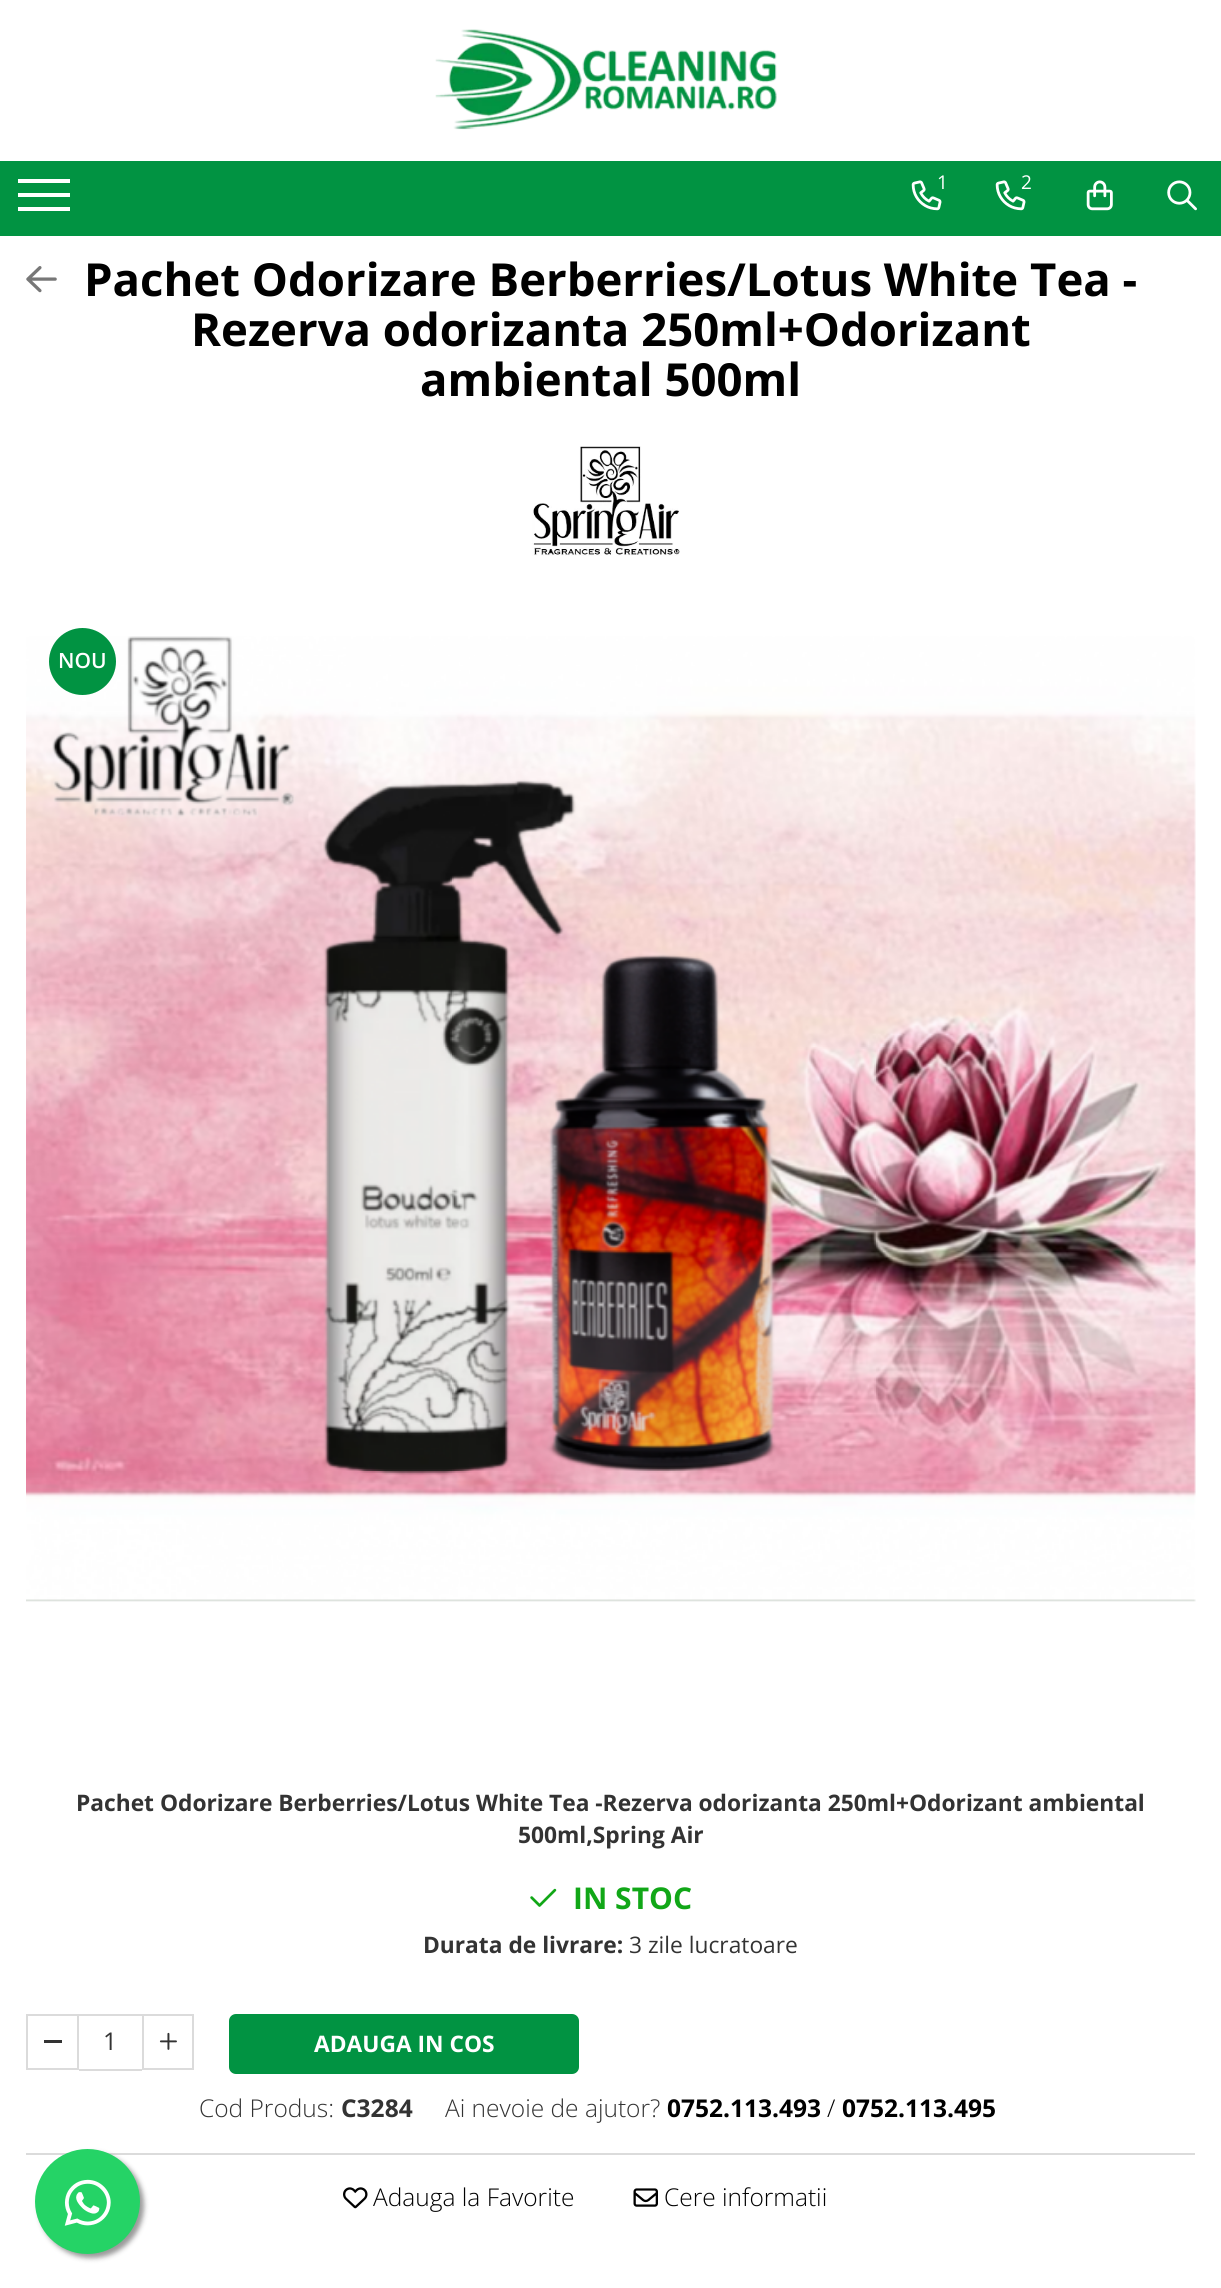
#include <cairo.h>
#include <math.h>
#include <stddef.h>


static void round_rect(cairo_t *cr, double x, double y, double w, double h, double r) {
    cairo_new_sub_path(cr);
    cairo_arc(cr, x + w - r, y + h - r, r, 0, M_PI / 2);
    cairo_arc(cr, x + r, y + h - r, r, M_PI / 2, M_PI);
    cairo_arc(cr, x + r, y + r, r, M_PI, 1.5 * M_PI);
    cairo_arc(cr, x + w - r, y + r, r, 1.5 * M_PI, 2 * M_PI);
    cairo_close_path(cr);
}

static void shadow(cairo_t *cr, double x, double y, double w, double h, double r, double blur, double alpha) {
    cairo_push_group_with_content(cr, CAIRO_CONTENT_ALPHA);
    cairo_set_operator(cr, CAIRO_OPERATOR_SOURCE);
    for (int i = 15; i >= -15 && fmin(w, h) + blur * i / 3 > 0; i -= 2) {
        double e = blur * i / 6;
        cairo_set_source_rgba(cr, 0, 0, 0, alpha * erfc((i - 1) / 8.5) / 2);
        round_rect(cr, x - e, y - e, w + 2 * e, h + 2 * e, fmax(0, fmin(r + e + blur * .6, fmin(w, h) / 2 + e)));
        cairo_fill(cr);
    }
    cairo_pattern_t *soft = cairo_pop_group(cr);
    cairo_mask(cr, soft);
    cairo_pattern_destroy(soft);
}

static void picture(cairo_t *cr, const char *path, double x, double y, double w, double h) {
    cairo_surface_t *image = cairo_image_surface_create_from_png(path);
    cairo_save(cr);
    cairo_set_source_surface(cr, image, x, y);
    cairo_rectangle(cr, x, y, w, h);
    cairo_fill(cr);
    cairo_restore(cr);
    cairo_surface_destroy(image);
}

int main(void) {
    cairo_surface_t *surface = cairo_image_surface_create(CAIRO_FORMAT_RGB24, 1221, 2288);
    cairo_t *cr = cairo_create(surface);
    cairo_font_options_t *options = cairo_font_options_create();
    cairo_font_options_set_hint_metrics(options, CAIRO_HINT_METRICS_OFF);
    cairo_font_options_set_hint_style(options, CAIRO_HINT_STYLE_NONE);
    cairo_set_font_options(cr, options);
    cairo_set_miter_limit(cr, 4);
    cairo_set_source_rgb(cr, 1, 1, 1);
    cairo_paint(cr);
    picture(cr, "img1.png", 435, 29, 342, 101);
    cairo_set_source_rgb(cr, 0.004, 0.576, 0.259);
    cairo_rectangle(cr, 0, 161, 1221, 75);
    cairo_fill(cr);
    cairo_set_source_rgb(cr, 1, 1, 1);
    cairo_rectangle(cr, 18, 193, 52, 4);
    cairo_fill(cr);
    cairo_rectangle(cr, 18, 179, 52, 4);
    cairo_fill(cr);
    cairo_rectangle(cr, 18, 207, 52, 4);
    cairo_fill(cr);
    picture(cr, "img2.png", 911, 180, 31, 31);
    cairo_select_font_face(cr, "Open Sans", CAIRO_FONT_SLANT_NORMAL, CAIRO_FONT_WEIGHT_NORMAL);
    cairo_set_font_size(cr, 19);
    cairo_move_to(cr, 937, 189);
    cairo_show_text(cr, "1");
    picture(cr, "img2.png", 995, 180, 31, 31);
    cairo_move_to(cr, 1021, 189);
    cairo_show_text(cr, "2");
    picture(cr, "img3.png", 1086, 180, 27, 31);
    picture(cr, "img4.png", 1167, 180, 30, 31);
    picture(cr, "img5.png", 26, 266, 31, 27);
    cairo_select_font_face(cr, "Open Sans", CAIRO_FONT_SLANT_NORMAL, CAIRO_FONT_WEIGHT_BOLD);
    cairo_set_font_size(cr, 45.5);
    cairo_set_source_rgb(cr, 0, 0, 0);
    cairo_move_to(cr, 84, 296);
    cairo_show_text(cr, "Pachet Odorizare Berberries/Lotus White Tea -");
    cairo_move_to(cr, 191, 346);
    cairo_show_text(cr, "Rezerva odorizanta 250ml+Odorizant");
    cairo_move_to(cr, 420, 396);
    cairo_show_text(cr, "ambiental 500ml");
    picture(cr, "img6.png", 532, 446, 148, 110);
    picture(cr, "img7.png", 26, 636, 1170, 966);
    cairo_set_source_rgb(cr, 0.004, 0.576, 0.259);
    cairo_arc(cr, 82.5, 661.5, 33.5, 0, 2 * M_PI);
    cairo_fill(cr);
    cairo_select_font_face(cr, "Open Sans SemiBold", CAIRO_FONT_SLANT_NORMAL, CAIRO_FONT_WEIGHT_NORMAL);
    cairo_set_font_size(cr, 21);
    cairo_set_source_rgb(cr, 1, 1, 1);
    cairo_move_to(cr, 58, 668);
    cairo_show_text(cr, "NOU");
    cairo_select_font_face(cr, "Open Sans", CAIRO_FONT_SLANT_NORMAL, CAIRO_FONT_WEIGHT_BOLD);
    cairo_set_font_size(cr, 22.75);
    cairo_set_source_rgb(cr, 0.2, 0.2, 0.2);
    cairo_move_to(cr, 76, 1811);
    cairo_show_text(cr, "Pachet Odorizare Berberries/Lotus White Tea -Rezerva odorizanta 250ml+Odorizant ambiental");
    cairo_move_to(cr, 518, 1843);
    cairo_show_text(cr, "500ml,Spring Air");
    picture(cr, "img8.png", 530, 1888, 27, 19);
    cairo_set_font_size(cr, 30);
    cairo_set_source_rgb(cr, 0.067, 0.655, 0.09);
    cairo_move_to(cr, 573, 1909);
    cairo_show_text(cr, "IN STOC");
    cairo_set_font_size(cr, 22.75);
    cairo_set_source_rgb(cr, 0.2, 0.2, 0.2);
    cairo_move_to(cr, 423, 1953);
    cairo_show_text(cr, "Durata de livrare:");
    cairo_select_font_face(cr, "Open Sans", CAIRO_FONT_SLANT_NORMAL, CAIRO_FONT_WEIGHT_NORMAL);
    cairo_move_to(cr, 629, 1953);
    cairo_show_text(cr, "3 zile lucratoare");
    cairo_rectangle(cr, 27, 2015, 51, 54);
    cairo_set_source_rgb(cr, 0.859, 0.859, 0.859);
    cairo_stroke(cr);
    cairo_set_source_rgb(cr, 0.2, 0.2, 0.2);
    cairo_rectangle(cr, 44, 2040, 18, 3);
    cairo_fill(cr);
    cairo_set_source_rgb(cr, 0.859, 0.859, 0.859);
    cairo_rectangle(cr, 79, 2014, 63, 2);
    cairo_fill(cr);
    cairo_rectangle(cr, 79, 2069, 63, 2);
    cairo_fill(cr);
    cairo_set_font_size(cr, 24.5);
    cairo_set_source_rgb(cr, 0.2, 0.2, 0.2);
    cairo_move_to(cr, 103, 2050);
    cairo_show_text(cr, "1");
    cairo_rectangle(cr, 143, 2015, 50, 54);
    cairo_set_source_rgb(cr, 0.859, 0.859, 0.859);
    cairo_stroke(cr);
    picture(cr, "img9.png", 159, 2032, 18, 18);
    cairo_set_source_rgb(cr, 0.004, 0.576, 0.259);
    round_rect(cr, 230, 2015, 348, 58, 6);
    cairo_fill_preserve(cr);
    cairo_stroke(cr);
    cairo_select_font_face(cr, "Open Sans", CAIRO_FONT_SLANT_NORMAL, CAIRO_FONT_WEIGHT_BOLD);
    cairo_set_font_size(cr, 22.75);
    cairo_set_source_rgb(cr, 1, 1, 1);
    cairo_move_to(cr, 314, 2052);
    cairo_show_text(cr, "ADAUGA IN COS");
    cairo_select_font_face(cr, "Open Sans Light", CAIRO_FONT_SLANT_NORMAL, CAIRO_FONT_WEIGHT_NORMAL);
    cairo_set_font_size(cr, 24.5);
    cairo_set_source_rgb(cr, 0.2, 0.2, 0.2);
    cairo_move_to(cr, 199, 2117);
    cairo_show_text(cr, "Cod Produs:");
    cairo_select_font_face(cr, "Open Sans", CAIRO_FONT_SLANT_NORMAL, CAIRO_FONT_WEIGHT_BOLD);
    cairo_move_to(cr, 341, 2117);
    cairo_show_text(cr, "C3284");
    cairo_select_font_face(cr, "Open Sans Light", CAIRO_FONT_SLANT_NORMAL, CAIRO_FONT_WEIGHT_NORMAL);
    cairo_move_to(cr, 445, 2117);
    cairo_show_text(cr, "Ai nevoie de ajutor?");
    cairo_select_font_face(cr, "Open Sans", CAIRO_FONT_SLANT_NORMAL, CAIRO_FONT_WEIGHT_BOLD);
    cairo_set_source_rgb(cr, 0, 0, 0);
    cairo_move_to(cr, 667, 2117);
    cairo_show_text(cr, "0752.113.493");
    cairo_select_font_face(cr, "Open Sans Light", CAIRO_FONT_SLANT_NORMAL, CAIRO_FONT_WEIGHT_NORMAL);
    cairo_move_to(cr, 827, 2117);
    cairo_show_text(cr, "/");
    cairo_select_font_face(cr, "Open Sans", CAIRO_FONT_SLANT_NORMAL, CAIRO_FONT_WEIGHT_BOLD);
    cairo_move_to(cr, 842, 2117);
    cairo_show_text(cr, "0752.113.495");
    cairo_set_source_rgb(cr, 0.859, 0.859, 0.859);
    cairo_rectangle(cr, 26, 2153, 1169, 2);
    cairo_fill(cr);
    picture(cr, "img10.png", 343, 2187, 25, 22);
    cairo_select_font_face(cr, "Open Sans Light", CAIRO_FONT_SLANT_NORMAL, CAIRO_FONT_WEIGHT_NORMAL);
    cairo_set_source_rgb(cr, 0, 0, 0);
    cairo_move_to(cr, 373, 2206);
    cairo_show_text(cr, "Adauga la Favorite");
    picture(cr, "img11.png", 633, 2188, 25, 19);
    cairo_move_to(cr, 664, 2206);
    cairo_show_text(cr, "Cere informatii");
    cairo_set_source_rgb(cr, 0.6, 0.6, 0.6);
    shadow(cr, 39, 2153, 105, 105, 52.5, 2.5, 1);
    cairo_set_source_rgb(cr, 0.145, 0.827, 0.4);
    cairo_arc(cr, 87.5, 2201.5, 52.5, 0, 2 * M_PI);
    cairo_fill(cr);
    picture(cr, "img12.png", 64, 2179, 47, 47);
    cairo_surface_write_to_png(surface, "page.png");
    cairo_font_options_destroy(options);
    cairo_destroy(cr);
    cairo_surface_destroy(surface);
    return 0;
}
